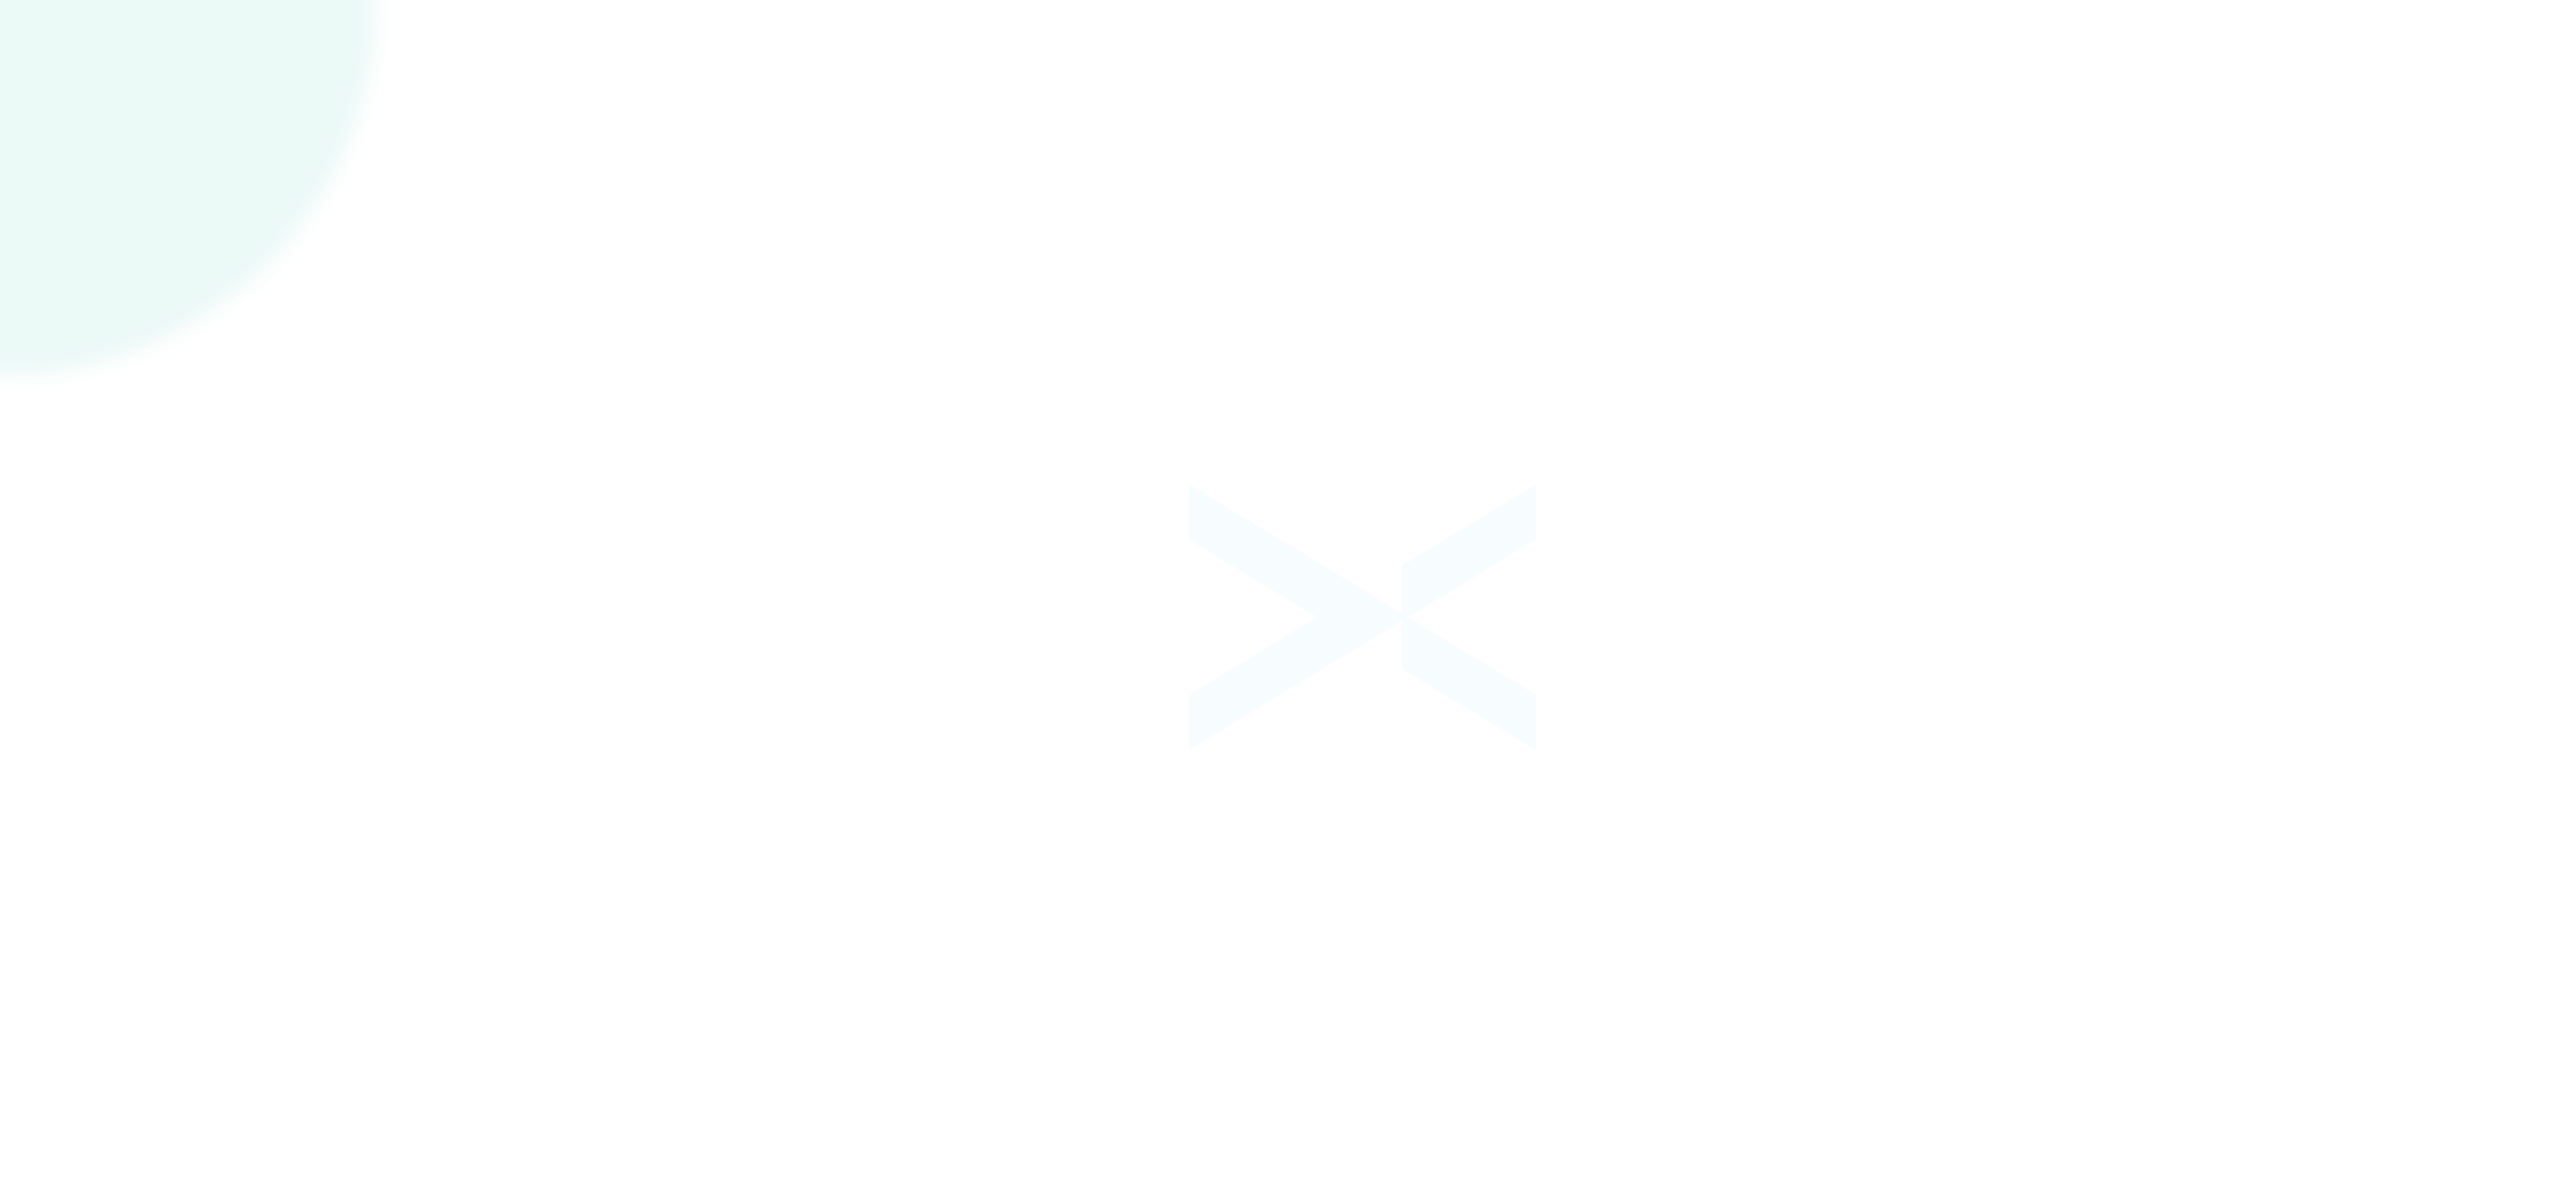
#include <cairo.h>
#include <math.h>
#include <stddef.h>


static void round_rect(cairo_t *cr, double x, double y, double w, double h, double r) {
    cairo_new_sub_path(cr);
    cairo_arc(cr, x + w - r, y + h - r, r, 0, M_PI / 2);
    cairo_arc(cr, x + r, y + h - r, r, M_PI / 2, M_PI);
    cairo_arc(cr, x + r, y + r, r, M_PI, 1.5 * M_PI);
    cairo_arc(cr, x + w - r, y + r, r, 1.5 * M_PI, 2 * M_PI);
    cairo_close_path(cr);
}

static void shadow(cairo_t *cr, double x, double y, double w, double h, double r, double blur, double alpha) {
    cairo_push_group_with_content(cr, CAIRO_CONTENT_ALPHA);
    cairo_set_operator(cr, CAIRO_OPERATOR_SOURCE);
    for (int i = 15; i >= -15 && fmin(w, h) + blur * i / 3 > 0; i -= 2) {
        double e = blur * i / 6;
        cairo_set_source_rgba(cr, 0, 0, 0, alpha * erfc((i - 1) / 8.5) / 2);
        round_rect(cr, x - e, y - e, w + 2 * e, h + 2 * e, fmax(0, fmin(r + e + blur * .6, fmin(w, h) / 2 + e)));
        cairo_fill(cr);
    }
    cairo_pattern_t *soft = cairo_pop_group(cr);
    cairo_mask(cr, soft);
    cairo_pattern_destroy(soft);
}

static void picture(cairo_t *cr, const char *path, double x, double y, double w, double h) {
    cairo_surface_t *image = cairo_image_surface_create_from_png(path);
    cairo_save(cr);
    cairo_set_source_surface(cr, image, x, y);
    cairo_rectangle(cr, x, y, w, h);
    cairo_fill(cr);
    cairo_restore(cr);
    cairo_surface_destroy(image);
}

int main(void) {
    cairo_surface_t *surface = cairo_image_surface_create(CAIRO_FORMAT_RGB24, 2569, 1186);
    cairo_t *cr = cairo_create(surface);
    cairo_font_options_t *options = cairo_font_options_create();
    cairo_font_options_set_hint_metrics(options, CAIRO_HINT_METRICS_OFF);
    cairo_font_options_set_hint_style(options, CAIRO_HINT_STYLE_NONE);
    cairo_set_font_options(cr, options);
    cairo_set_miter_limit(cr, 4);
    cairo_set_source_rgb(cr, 1, 1, 1);
    cairo_paint(cr);
    cairo_set_source_rgb(cr, 0.078, 0.722, 0.651);
    shadow(cr, -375, -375, 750, 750, 375, 10, 0.09);
    picture(cr, "img1.png", 1189, 485, 347, 264);
    cairo_surface_write_to_png(surface, "page.png");
    cairo_font_options_destroy(options);
    cairo_destroy(cr);
    cairo_surface_destroy(surface);
    return 0;
}
